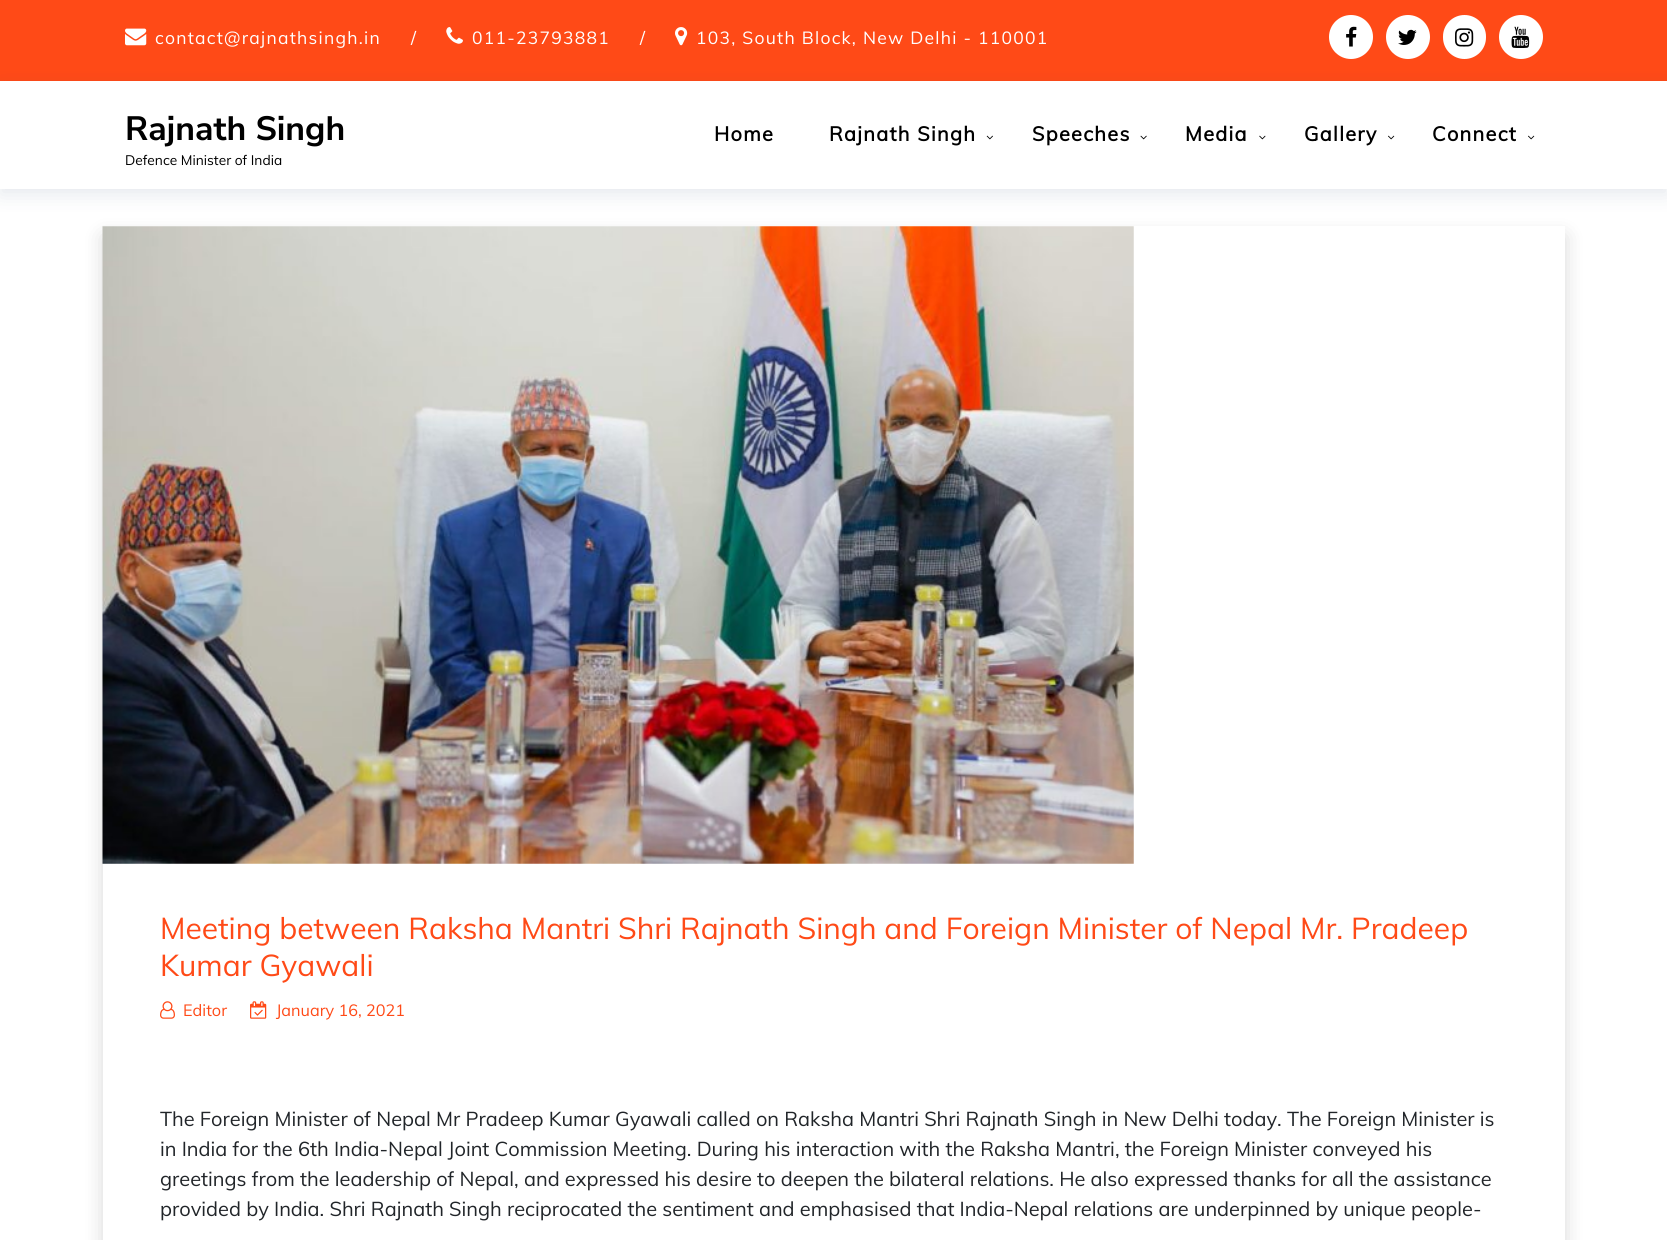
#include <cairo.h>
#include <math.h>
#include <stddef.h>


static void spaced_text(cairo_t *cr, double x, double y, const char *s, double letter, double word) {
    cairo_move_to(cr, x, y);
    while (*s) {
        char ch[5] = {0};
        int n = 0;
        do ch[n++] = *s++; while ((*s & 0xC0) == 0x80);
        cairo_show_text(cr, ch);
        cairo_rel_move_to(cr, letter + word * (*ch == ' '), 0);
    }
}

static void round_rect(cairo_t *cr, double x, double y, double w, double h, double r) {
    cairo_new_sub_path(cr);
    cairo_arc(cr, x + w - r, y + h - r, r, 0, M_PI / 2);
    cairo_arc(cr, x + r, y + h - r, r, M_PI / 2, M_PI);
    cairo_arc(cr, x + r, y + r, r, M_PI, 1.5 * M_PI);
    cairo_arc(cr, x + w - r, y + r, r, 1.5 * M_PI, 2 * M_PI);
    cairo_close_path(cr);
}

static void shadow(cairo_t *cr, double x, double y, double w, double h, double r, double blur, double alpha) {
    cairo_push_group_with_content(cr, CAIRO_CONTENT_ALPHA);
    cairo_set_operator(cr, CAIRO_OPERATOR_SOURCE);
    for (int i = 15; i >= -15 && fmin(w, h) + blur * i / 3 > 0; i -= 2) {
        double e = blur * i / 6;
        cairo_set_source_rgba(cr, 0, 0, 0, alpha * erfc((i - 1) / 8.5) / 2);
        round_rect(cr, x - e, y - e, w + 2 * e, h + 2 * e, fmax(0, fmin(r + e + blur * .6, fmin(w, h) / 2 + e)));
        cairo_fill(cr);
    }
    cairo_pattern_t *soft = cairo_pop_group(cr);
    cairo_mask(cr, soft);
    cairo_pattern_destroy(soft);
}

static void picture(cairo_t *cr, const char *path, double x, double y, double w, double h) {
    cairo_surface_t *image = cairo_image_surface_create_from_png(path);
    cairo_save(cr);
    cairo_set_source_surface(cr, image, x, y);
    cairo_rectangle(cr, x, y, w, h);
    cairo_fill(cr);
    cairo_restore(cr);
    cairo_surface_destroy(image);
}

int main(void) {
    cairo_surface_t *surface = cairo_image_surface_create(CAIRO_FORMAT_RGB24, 1667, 1240);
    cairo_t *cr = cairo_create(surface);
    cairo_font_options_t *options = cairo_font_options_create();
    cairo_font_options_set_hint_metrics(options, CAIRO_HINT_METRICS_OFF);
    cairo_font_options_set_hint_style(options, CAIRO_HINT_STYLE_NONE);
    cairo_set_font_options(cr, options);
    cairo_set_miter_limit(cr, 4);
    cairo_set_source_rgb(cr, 1, 1, 1);
    cairo_paint(cr);
    cairo_set_source_rgb(cr, 1, 0.29, 0.09);
    cairo_rectangle(cr, 0, 0, 1667, 81);
    cairo_fill(cr);
    picture(cr, "img1.png", 125, 28, 22, 18);
    cairo_select_font_face(cr, "Muli", CAIRO_FONT_SLANT_NORMAL, CAIRO_FONT_WEIGHT_NORMAL);
    cairo_set_font_size(cr, 17.5);
    cairo_set_source_rgb(cr, 1, 1, 1);
    spaced_text(cr, 155, 44, "contact@rajnathsingh.in", 1.25, 0);
    cairo_move_to(cr, 411, 44);
    cairo_show_text(cr, "/");
    picture(cr, "img2.png", 446, 27, 17, 17);
    spaced_text(cr, 472, 44, "011-23793881", 1.25, 0);
    cairo_move_to(cr, 640, 44);
    cairo_show_text(cr, "/");
    picture(cr, "img3.png", 675, 27, 13, 19);
    spaced_text(cr, 696, 44, "103, South Block, New Delhi - 110001", 1.25, 0);
    cairo_new_path(cr);
    cairo_arc(cr, 1351, 37, 22, 0, 2 * M_PI);
    cairo_fill(cr);
    picture(cr, "img4.png", 1346, 26, 11, 21);
    cairo_arc(cr, 1408, 37, 22, 0, 2 * M_PI);
    cairo_fill(cr);
    picture(cr, "img5.png", 1398, 29, 19, 16);
    round_rect(cr, 1443, 15, 43, 44, 21.5);
    cairo_fill(cr);
    picture(cr, "img6.png", 1455, 28, 19, 19);
    cairo_arc(cr, 1521, 37, 22, 0, 2 * M_PI);
    cairo_fill(cr);
    picture(cr, "img7.png", 1511, 26, 19, 22);
    cairo_set_source_rgb(cr, 0, 0.129, 0.333);
    shadow(cr, 0, 88, 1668, 107, 0, 9.5, 0.1);
    cairo_set_source_rgb(cr, 1, 1, 1);
    cairo_rectangle(cr, 0, 81, 1667, 108);
    cairo_fill(cr);
    cairo_select_font_face(cr, "Nunito Sans", CAIRO_FONT_SLANT_NORMAL, CAIRO_FONT_WEIGHT_BOLD);
    cairo_set_font_size(cr, 33.75);
    cairo_set_source_rgb(cr, 0, 0, 0);
    cairo_move_to(cr, 125, 140);
    cairo_show_text(cr, "Rajnath Singh");
    cairo_select_font_face(cr, "Muli", CAIRO_FONT_SLANT_NORMAL, CAIRO_FONT_WEIGHT_NORMAL);
    cairo_set_font_size(cr, 13.75);
    cairo_move_to(cr, 125, 165);
    cairo_show_text(cr, "Defence Minister of India");
    cairo_select_font_face(cr, "Muli", CAIRO_FONT_SLANT_NORMAL, CAIRO_FONT_WEIGHT_BOLD);
    cairo_set_font_size(cr, 20);
    spaced_text(cr, 714, 141, "Home", 1.25, 0);
    spaced_text(cr, 829, 141, "Rajnath Singh", 1.25, 0);
    picture(cr, "img8.png", 986, 135, 7, 5);
    spaced_text(cr, 1032, 141, "Speeches", 1.25, 0);
    picture(cr, "img9.png", 1140, 135, 7, 5);
    spaced_text(cr, 1185, 141, "Media", 1.25, 0);
    picture(cr, "img10.png", 1259, 135, 7, 5);
    spaced_text(cr, 1304, 141, "Gallery", 1.25, 0);
    picture(cr, "img11.png", 1388, 135, 7, 5);
    spaced_text(cr, 1432, 141, "Connect", 1.25, 0);
    picture(cr, "img11.png", 1528, 135, 7, 5);
    cairo_save(cr);
    cairo_set_fill_rule(cr, CAIRO_FILL_RULE_EVEN_ODD);
    cairo_new_path(cr);
    cairo_move_to(cr, 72, 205);
    cairo_line_to(cr, 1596, 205);
    cairo_line_to(cr, 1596, 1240);
    cairo_line_to(cr, 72, 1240);
    cairo_close_path(cr);
    cairo_move_to(cr, 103, 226);
    cairo_line_to(cr, 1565, 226);
    cairo_line_to(cr, 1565, 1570);
    cairo_line_to(cr, 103, 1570);
    cairo_close_path(cr);
    cairo_clip(cr);
    cairo_set_source_rgb(cr, 0, 0, 0);
    shadow(cr, 103, 236, 1462, 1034, 0, 10, 0.15);
    cairo_restore(cr);
    picture(cr, "img12.png", 102, 226, 1032, 638);
    cairo_select_font_face(cr, "Muli", CAIRO_FONT_SLANT_NORMAL, CAIRO_FONT_WEIGHT_NORMAL);
    cairo_set_font_size(cr, 30);
    cairo_set_source_rgb(cr, 1, 0.29, 0.09);
    cairo_move_to(cr, 160, 939);
    cairo_show_text(cr, "Meeting between Raksha Mantri Shri Rajnath Singh and Foreign Minister of Nepal Mr. Pradeep");
    cairo_move_to(cr, 160, 976);
    cairo_show_text(cr, "Kumar Gyawali");
    picture(cr, "img13.png", 160, 1001, 15, 18);
    cairo_set_font_size(cr, 16.25);
    cairo_move_to(cr, 183, 1016);
    cairo_show_text(cr, "Editor");
    picture(cr, "img14.png", 250, 1001, 17, 18);
    cairo_move_to(cr, 276, 1016);
    cairo_show_text(cr, "January 16, 2021");
    cairo_set_font_size(cr, 20);
    cairo_set_source_rgb(cr, 0.129, 0.145, 0.161);
    cairo_move_to(cr, 160, 1126);
    cairo_show_text(cr, "The Foreign Minister of Nepal Mr Pradeep Kumar Gyawali called on Raksha Mantri Shri Rajnath Singh in New Delhi today. The Foreign Minister is");
    cairo_move_to(cr, 160, 1156);
    cairo_show_text(cr, "in India for the 6th India-Nepal Joint Commission Meeting. During his interaction with the Raksha Mantri, the Foreign Minister conveyed his");
    cairo_move_to(cr, 160, 1186);
    cairo_show_text(cr, "greetings from the leadership of Nepal, and expressed his desire to deepen the bilateral relations. He also expressed thanks for all the assistance");
    cairo_move_to(cr, 160, 1216);
    cairo_show_text(cr, "provided by India. Shri Rajnath Singh reciprocated the sentiment and emphasised that India-Nepal relations are underpinned by unique people-");
    cairo_surface_write_to_png(surface, "page.png");
    cairo_font_options_destroy(options);
    cairo_destroy(cr);
    cairo_surface_destroy(surface);
    return 0;
}
